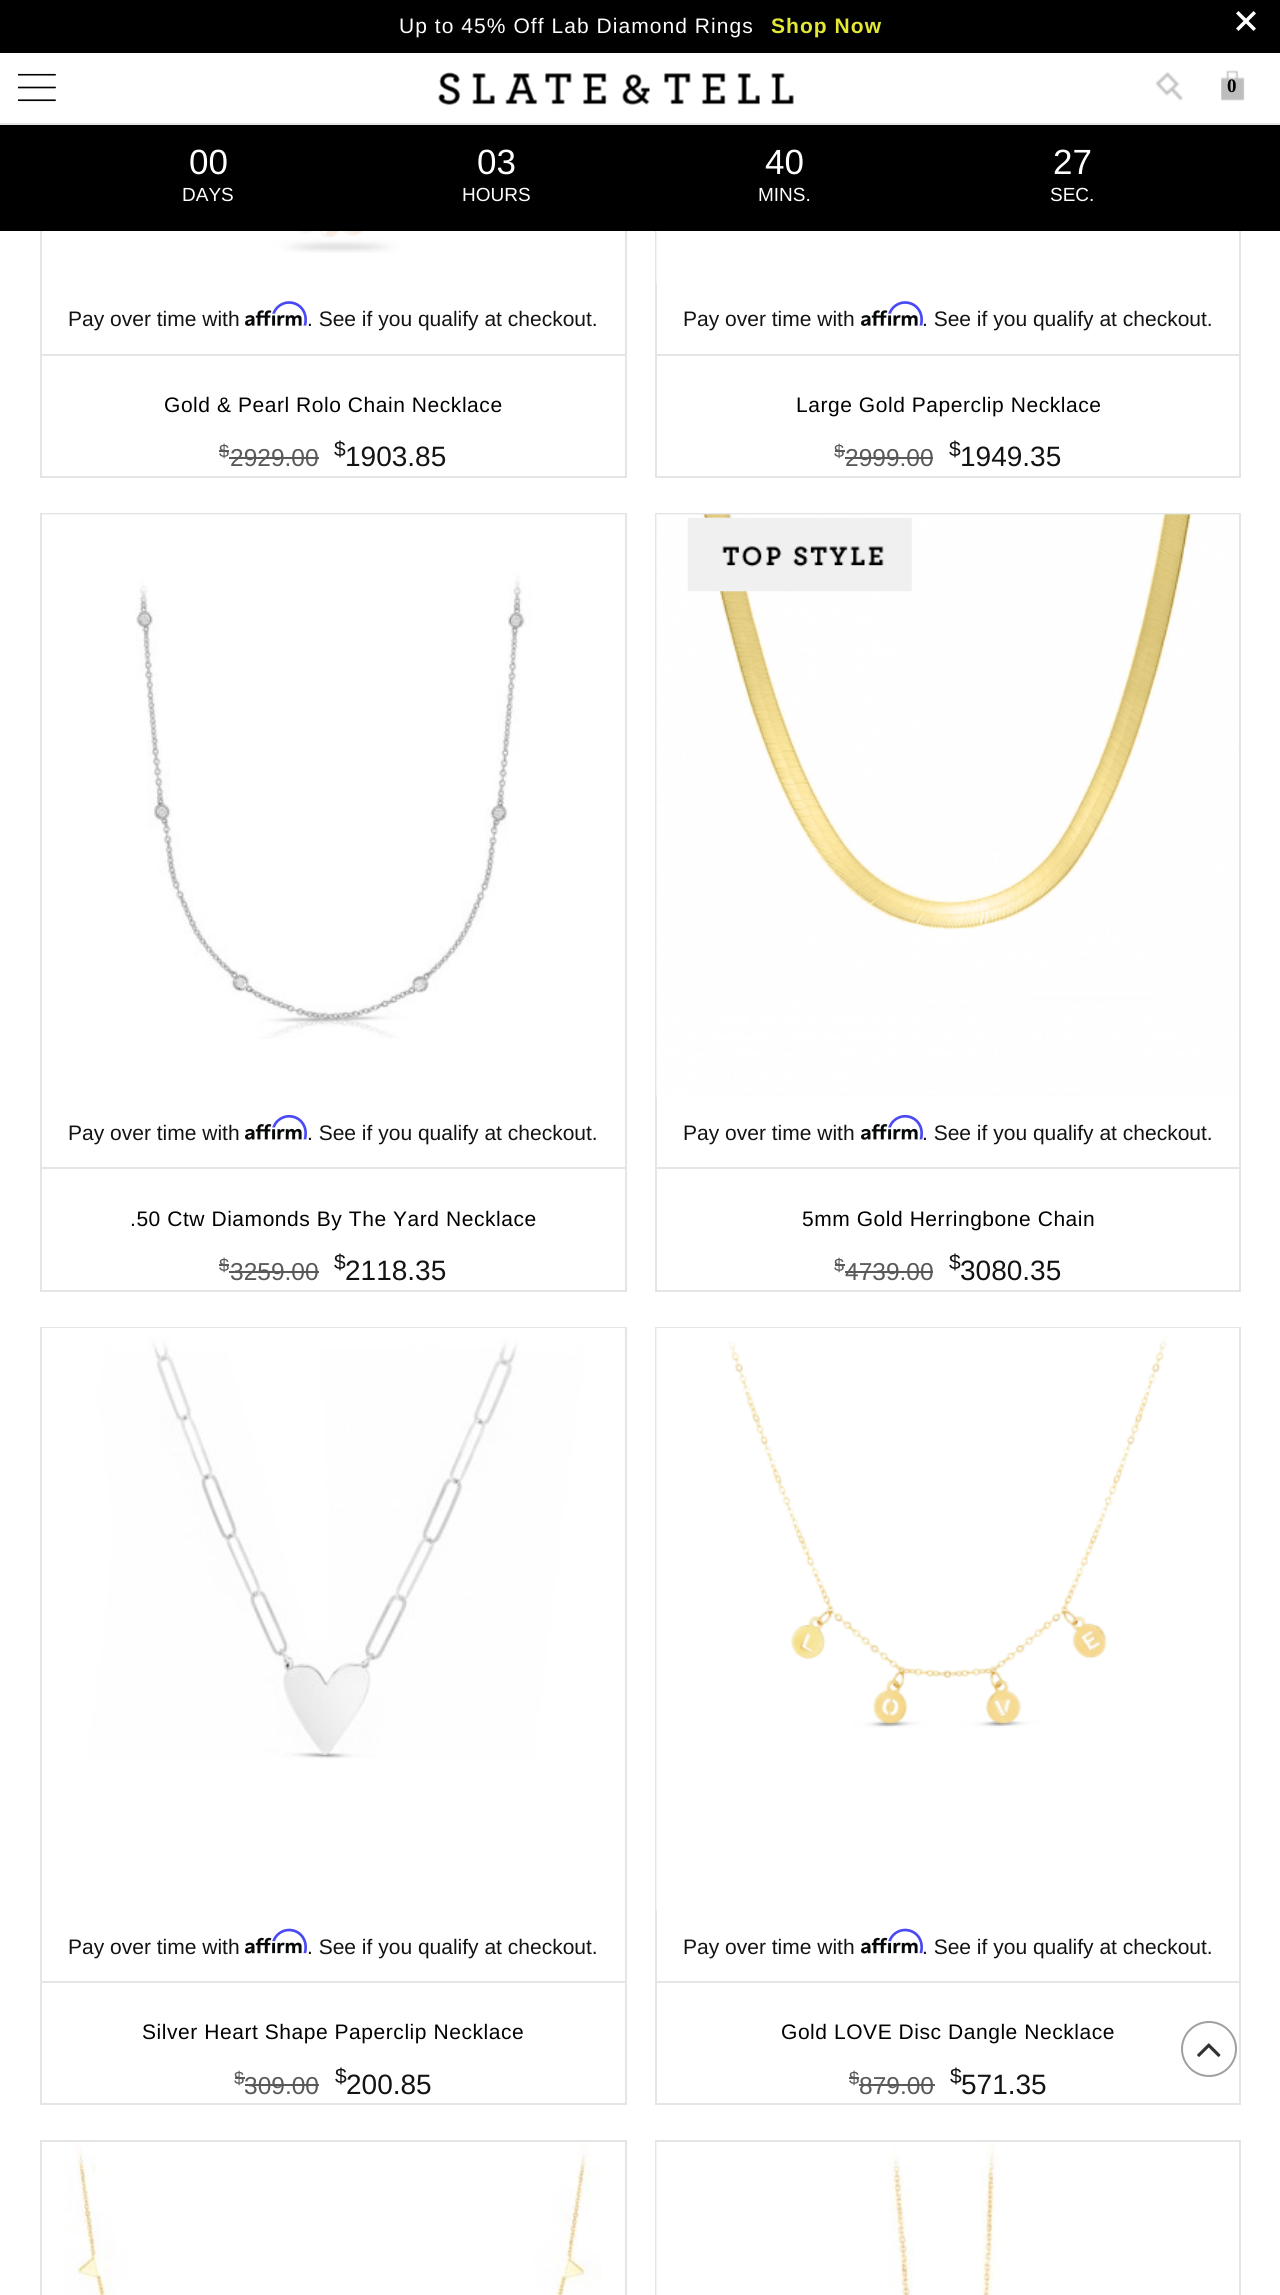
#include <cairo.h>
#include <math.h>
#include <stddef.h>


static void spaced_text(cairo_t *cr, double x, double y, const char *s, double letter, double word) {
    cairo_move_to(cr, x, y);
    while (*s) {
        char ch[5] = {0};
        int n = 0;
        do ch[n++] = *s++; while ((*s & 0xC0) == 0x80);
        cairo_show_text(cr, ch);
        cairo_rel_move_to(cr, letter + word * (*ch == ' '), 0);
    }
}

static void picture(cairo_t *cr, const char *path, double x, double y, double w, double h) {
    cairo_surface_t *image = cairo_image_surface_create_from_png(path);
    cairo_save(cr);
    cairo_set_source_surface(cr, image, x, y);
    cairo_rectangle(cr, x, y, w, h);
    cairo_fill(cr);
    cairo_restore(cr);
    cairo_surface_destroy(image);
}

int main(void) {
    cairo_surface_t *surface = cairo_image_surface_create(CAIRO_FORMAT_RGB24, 1280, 2295);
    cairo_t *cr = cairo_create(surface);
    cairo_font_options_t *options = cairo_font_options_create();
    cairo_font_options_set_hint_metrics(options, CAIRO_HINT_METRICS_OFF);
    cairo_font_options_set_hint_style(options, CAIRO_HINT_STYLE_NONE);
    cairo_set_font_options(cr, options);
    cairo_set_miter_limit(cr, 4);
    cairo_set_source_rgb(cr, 1, 1, 1);
    cairo_paint(cr);
    cairo_rectangle(cr, 41, -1, 585, 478);
    cairo_set_source_rgb(cr, 0.898, 0.898, 0.898);
    cairo_stroke(cr);
    cairo_rectangle(cr, 656, -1, 584, 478);
    cairo_stroke(cr);
    cairo_set_source_rgb(cr, 1, 1, 1);
    cairo_rectangle(cr, 40, 53, 1201, 70);
    cairo_fill(cr);
    cairo_set_source_rgb(cr, 0.898, 0.898, 0.898);
    cairo_rectangle(cr, 0, 123, 1280, 2);
    cairo_fill(cr);
    cairo_set_source_rgb(cr, 0, 0, 0);
    cairo_rectangle(cr, 0, 0, 1280, 53);
    cairo_fill(cr);
    cairo_select_font_face(cr, "Liberation Sans", CAIRO_FONT_SLANT_NORMAL, CAIRO_FONT_WEIGHT_NORMAL);
    cairo_set_font_size(cr, 21);
    cairo_set_source_rgb(cr, 1, 1, 1);
    spaced_text(cr, 399, 33, "Up to 45% Off Lab Diamond Rings", 1.05, 0);
    cairo_select_font_face(cr, "Liberation Sans", CAIRO_FONT_SLANT_NORMAL, CAIRO_FONT_WEIGHT_BOLD);
    cairo_set_source_rgb(cr, 0.89, 0.91, 0.212);
    spaced_text(cr, 771, 33, "Shop Now", 1.05, 0);
    cairo_set_source_rgb(cr, 1, 1, 1);
    cairo_new_path(cr);
    cairo_move_to(cr, 1236, 28.5);
    cairo_line_to(cr, 1253.5, 11);
    cairo_line_to(cr, 1256, 13.5);
    cairo_line_to(cr, 1238.5, 31);
    cairo_close_path(cr);
    cairo_fill(cr);
    cairo_new_path(cr);
    cairo_move_to(cr, 1238.5, 11);
    cairo_line_to(cr, 1256, 28.5);
    cairo_line_to(cr, 1253.5, 31);
    cairo_line_to(cr, 1236, 13.5);
    cairo_close_path(cr);
    cairo_fill(cr);
    picture(cr, "img1.png", 18, 73, 38, 29);
    picture(cr, "img2.png", 438, 72, 356, 33);
    picture(cr, "img3.png", 1155, 71, 28, 30);
    picture(cr, "img4.png", 1221, 70, 24, 31);
    cairo_select_font_face(cr, "Liberation Serif", CAIRO_FONT_SLANT_NORMAL, CAIRO_FONT_WEIGHT_BOLD);
    cairo_set_font_size(cr, 19);
    cairo_set_source_rgb(cr, 0, 0, 0);
    cairo_move_to(cr, 1227, 92);
    cairo_show_text(cr, "0");
    cairo_rectangle(cr, 0, 125, 1280, 106);
    cairo_fill(cr);
    cairo_select_font_face(cr, "Liberation Sans", CAIRO_FONT_SLANT_NORMAL, CAIRO_FONT_WEIGHT_NORMAL);
    cairo_set_font_size(cr, 35);
    cairo_set_source_rgb(cr, 1, 1, 1);
    cairo_move_to(cr, 189, 174);
    cairo_show_text(cr, "00");
    cairo_set_font_size(cr, 19);
    cairo_move_to(cr, 182, 201);
    cairo_show_text(cr, "DAYS");
    cairo_set_font_size(cr, 35);
    cairo_move_to(cr, 477, 174);
    cairo_show_text(cr, "03");
    cairo_set_font_size(cr, 19);
    cairo_move_to(cr, 462, 201);
    cairo_show_text(cr, "HOURS");
    cairo_set_font_size(cr, 35);
    cairo_move_to(cr, 765, 174);
    cairo_show_text(cr, "40");
    cairo_set_font_size(cr, 19);
    cairo_move_to(cr, 758, 201);
    cairo_show_text(cr, "MINS.");
    cairo_set_font_size(cr, 35);
    cairo_move_to(cr, 1053, 174);
    cairo_show_text(cr, "27");
    cairo_set_font_size(cr, 19);
    cairo_move_to(cr, 1050, 201);
    cairo_show_text(cr, "SEC.");
    picture(cr, "img5.png", 173, 231, 314, 22);
    cairo_set_font_size(cr, 21);
    cairo_set_source_rgb(cr, 0.075, 0.075, 0.075);
    cairo_move_to(cr, 68, 326);
    cairo_show_text(cr, "Pay over time with");
    picture(cr, "img7.png", 245, 310, 57, 16);
    picture(cr, "img6.png", 272, 301, 35, 25);
    cairo_move_to(cr, 307, 326);
    cairo_show_text(cr, ". See if you qualify at checkout.");
    cairo_set_source_rgb(cr, 0.898, 0.898, 0.898);
    cairo_rectangle(cr, 42, 354, 583, 2);
    cairo_fill(cr);
    cairo_set_source_rgb(cr, 0, 0, 0);
    spaced_text(cr, 164, 412, "Gold & Pearl Rolo Chain Necklace", 0.55, 0);
    cairo_set_source_rgb(cr, 0.349, 0.349, 0.349);
    cairo_rectangle(cr, 229, 457, 90, 2);
    cairo_fill(cr);
    cairo_set_font_size(cr, 18);
    cairo_move_to(cr, 219, 457);
    cairo_show_text(cr, "$");
    cairo_rectangle(cr, 219, 450, 10, 2);
    cairo_fill(cr);
    cairo_set_font_size(cr, 24.5);
    cairo_move_to(cr, 230, 466);
    cairo_show_text(cr, "2929.00");
    cairo_set_font_size(cr, 21);
    cairo_set_source_rgb(cr, 0.075, 0.075, 0.075);
    cairo_move_to(cr, 334, 456);
    cairo_show_text(cr, "$");
    cairo_set_font_size(cr, 28);
    cairo_move_to(cr, 345, 466);
    cairo_show_text(cr, "1903.85");
    picture(cr, "img8.png", 656, 231, 483, 52);
    cairo_set_font_size(cr, 21);
    cairo_move_to(cr, 683, 326);
    cairo_show_text(cr, "Pay over time with");
    picture(cr, "img7.png", 861, 310, 57, 16);
    picture(cr, "img6.png", 888, 301, 35, 25);
    cairo_move_to(cr, 922, 326);
    cairo_show_text(cr, ". See if you qualify at checkout.");
    cairo_set_source_rgb(cr, 0.898, 0.898, 0.898);
    cairo_rectangle(cr, 656, 354, 583, 2);
    cairo_fill(cr);
    cairo_set_source_rgb(cr, 0, 0, 0);
    spaced_text(cr, 796, 412, "Large Gold Paperclip Necklace", 0.55, 0);
    cairo_set_font_size(cr, 18);
    cairo_set_source_rgb(cr, 0.349, 0.349, 0.349);
    cairo_move_to(cr, 834, 457);
    cairo_show_text(cr, "$");
    cairo_rectangle(cr, 835, 450, 10, 2);
    cairo_fill(cr);
    cairo_set_font_size(cr, 24.5);
    cairo_move_to(cr, 845, 466);
    cairo_show_text(cr, "2999.00");
    cairo_rectangle(cr, 845, 457, 88, 2);
    cairo_fill(cr);
    cairo_set_font_size(cr, 21);
    cairo_set_source_rgb(cr, 0.075, 0.075, 0.075);
    cairo_move_to(cr, 949, 456);
    cairo_show_text(cr, "$");
    cairo_set_font_size(cr, 28);
    cairo_move_to(cr, 960, 466);
    cairo_show_text(cr, "1949.35");
    cairo_rectangle(cr, 41, 514, 585, 777);
    cairo_set_source_rgb(cr, 0.898, 0.898, 0.898);
    cairo_stroke(cr);
    picture(cr, "img9.png", 42, 514, 583, 525);
    cairo_set_font_size(cr, 21);
    cairo_set_source_rgb(cr, 0.075, 0.075, 0.075);
    cairo_move_to(cr, 68, 1140);
    cairo_show_text(cr, "Pay over time with");
    picture(cr, "img11.png", 245, 1124, 57, 16);
    picture(cr, "img10.png", 272, 1114, 35, 26);
    cairo_move_to(cr, 307, 1140);
    cairo_show_text(cr, ". See if you qualify at checkout.");
    cairo_set_source_rgb(cr, 0.898, 0.898, 0.898);
    cairo_rectangle(cr, 42, 1167, 583, 2);
    cairo_fill(cr);
    cairo_set_source_rgb(cr, 0, 0, 0);
    spaced_text(cr, 130, 1226, ".50 Ctw Diamonds By The Yard Necklace", 0.55, 0);
    cairo_set_source_rgb(cr, 0.349, 0.349, 0.349);
    cairo_rectangle(cr, 229, 1271, 90, 2);
    cairo_fill(cr);
    cairo_set_font_size(cr, 18);
    cairo_move_to(cr, 219, 1271);
    cairo_show_text(cr, "$");
    cairo_rectangle(cr, 219, 1264, 10, 2);
    cairo_fill(cr);
    cairo_set_font_size(cr, 24.5);
    cairo_move_to(cr, 230, 1280);
    cairo_show_text(cr, "3259.00");
    cairo_set_font_size(cr, 21);
    cairo_set_source_rgb(cr, 0.075, 0.075, 0.075);
    cairo_move_to(cr, 334, 1269);
    cairo_show_text(cr, "$");
    cairo_set_font_size(cr, 28);
    cairo_move_to(cr, 345, 1280);
    cairo_show_text(cr, "2118.35");
    cairo_rectangle(cr, 656, 514, 584, 777);
    cairo_set_source_rgb(cr, 0.898, 0.898, 0.898);
    cairo_stroke(cr);
    picture(cr, "img12.png", 656, 514, 583, 583);
    picture(cr, "img13.png", 687, 517, 225, 75);
    cairo_set_font_size(cr, 21);
    cairo_set_source_rgb(cr, 0.075, 0.075, 0.075);
    cairo_move_to(cr, 683, 1140);
    cairo_show_text(cr, "Pay over time with");
    picture(cr, "img11.png", 861, 1124, 57, 16);
    picture(cr, "img10.png", 888, 1114, 35, 26);
    cairo_move_to(cr, 922, 1140);
    cairo_show_text(cr, ". See if you qualify at checkout.");
    cairo_set_source_rgb(cr, 0.898, 0.898, 0.898);
    cairo_rectangle(cr, 656, 1167, 583, 2);
    cairo_fill(cr);
    cairo_set_source_rgb(cr, 0, 0, 0);
    spaced_text(cr, 802, 1226, "5mm Gold Herringbone Chain", 0.55, 0);
    cairo_set_font_size(cr, 18);
    cairo_set_source_rgb(cr, 0.349, 0.349, 0.349);
    cairo_move_to(cr, 834, 1271);
    cairo_show_text(cr, "$");
    cairo_rectangle(cr, 835, 1264, 10, 2);
    cairo_fill(cr);
    cairo_set_font_size(cr, 24.5);
    cairo_move_to(cr, 845, 1280);
    cairo_show_text(cr, "4739.00");
    cairo_rectangle(cr, 845, 1271, 88, 2);
    cairo_fill(cr);
    cairo_set_font_size(cr, 21);
    cairo_set_source_rgb(cr, 0.075, 0.075, 0.075);
    cairo_move_to(cr, 949, 1269);
    cairo_show_text(cr, "$");
    cairo_set_font_size(cr, 28);
    cairo_move_to(cr, 960, 1280);
    cairo_show_text(cr, "3080.35");
    cairo_rectangle(cr, 41, 1328, 585, 776);
    cairo_set_source_rgb(cr, 0.898, 0.898, 0.898);
    cairo_stroke(cr);
    picture(cr, "img14.png", 42, 1328, 583, 431);
    cairo_set_font_size(cr, 21);
    cairo_set_source_rgb(cr, 0.075, 0.075, 0.075);
    cairo_move_to(cr, 68, 1954);
    cairo_show_text(cr, "Pay over time with");
    picture(cr, "img16.png", 245, 1937, 57, 17);
    picture(cr, "img15.png", 272, 1928, 35, 26);
    cairo_move_to(cr, 307, 1954);
    cairo_show_text(cr, ". See if you qualify at checkout.");
    cairo_set_source_rgb(cr, 0.898, 0.898, 0.898);
    cairo_rectangle(cr, 42, 1981, 583, 2);
    cairo_fill(cr);
    cairo_set_source_rgb(cr, 0, 0, 0);
    spaced_text(cr, 142, 2039, "Silver Heart Shape Paperclip Necklace", 0.55, 0);
    cairo_set_font_size(cr, 18);
    cairo_set_source_rgb(cr, 0.349, 0.349, 0.349);
    cairo_move_to(cr, 234, 2084);
    cairo_show_text(cr, "$");
    cairo_rectangle(cr, 235, 2077, 10, 2);
    cairo_fill(cr);
    cairo_set_font_size(cr, 24.5);
    cairo_move_to(cr, 244, 2094);
    cairo_show_text(cr, "309.00");
    cairo_rectangle(cr, 245, 2084, 74, 2);
    cairo_fill(cr);
    cairo_set_font_size(cr, 21);
    cairo_set_source_rgb(cr, 0.075, 0.075, 0.075);
    cairo_move_to(cr, 335, 2083);
    cairo_show_text(cr, "$");
    cairo_set_font_size(cr, 28);
    cairo_move_to(cr, 346, 2094);
    cairo_show_text(cr, "200.85");
    cairo_rectangle(cr, 656, 1328, 584, 776);
    cairo_set_source_rgb(cr, 0.898, 0.898, 0.898);
    cairo_stroke(cr);
    picture(cr, "img17.png", 656, 1328, 583, 583);
    cairo_set_font_size(cr, 21);
    cairo_set_source_rgb(cr, 0.075, 0.075, 0.075);
    cairo_move_to(cr, 683, 1954);
    cairo_show_text(cr, "Pay over time with");
    picture(cr, "img16.png", 861, 1937, 57, 17);
    picture(cr, "img15.png", 888, 1928, 35, 26);
    cairo_move_to(cr, 922, 1954);
    cairo_show_text(cr, ". See if you qualify at checkout.");
    cairo_set_source_rgb(cr, 0.898, 0.898, 0.898);
    cairo_rectangle(cr, 656, 1981, 583, 2);
    cairo_fill(cr);
    cairo_set_source_rgb(cr, 0, 0, 0);
    spaced_text(cr, 781, 2039, "Gold LOVE Disc Dangle Necklace", 0.55, 0);
    cairo_set_font_size(cr, 18);
    cairo_set_source_rgb(cr, 0.349, 0.349, 0.349);
    cairo_move_to(cr, 849, 2084);
    cairo_show_text(cr, "$");
    cairo_rectangle(cr, 849, 2077, 10, 2);
    cairo_fill(cr);
    cairo_set_font_size(cr, 24.5);
    cairo_move_to(cr, 859, 2094);
    cairo_show_text(cr, "879.00");
    cairo_rectangle(cr, 859, 2084, 76, 2);
    cairo_fill(cr);
    cairo_set_font_size(cr, 21);
    cairo_set_source_rgb(cr, 0.075, 0.075, 0.075);
    cairo_move_to(cr, 950, 2083);
    cairo_show_text(cr, "$");
    cairo_set_font_size(cr, 28);
    cairo_move_to(cr, 961, 2094);
    cairo_show_text(cr, "571.35");
    cairo_rectangle(cr, 41, 2141, 585, 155);
    cairo_set_source_rgb(cr, 0.898, 0.898, 0.898);
    cairo_stroke(cr);
    picture(cr, "img18.png", 65, 2142, 537, 153);
    cairo_rectangle(cr, 656, 2141, 584, 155);
    cairo_stroke(cr);
    picture(cr, "img19.png", 656, 2142, 346, 153);
    cairo_arc(cr, 1209, 2049, 27, 0, 2 * M_PI);
    cairo_set_source_rgb(cr, 0.627, 0.627, 0.627);
    cairo_stroke(cr);
    picture(cr, "img20.png", 1197, 2043, 24, 14);
    cairo_surface_write_to_png(surface, "page.png");
    cairo_font_options_destroy(options);
    cairo_destroy(cr);
    cairo_surface_destroy(surface);
    return 0;
}
